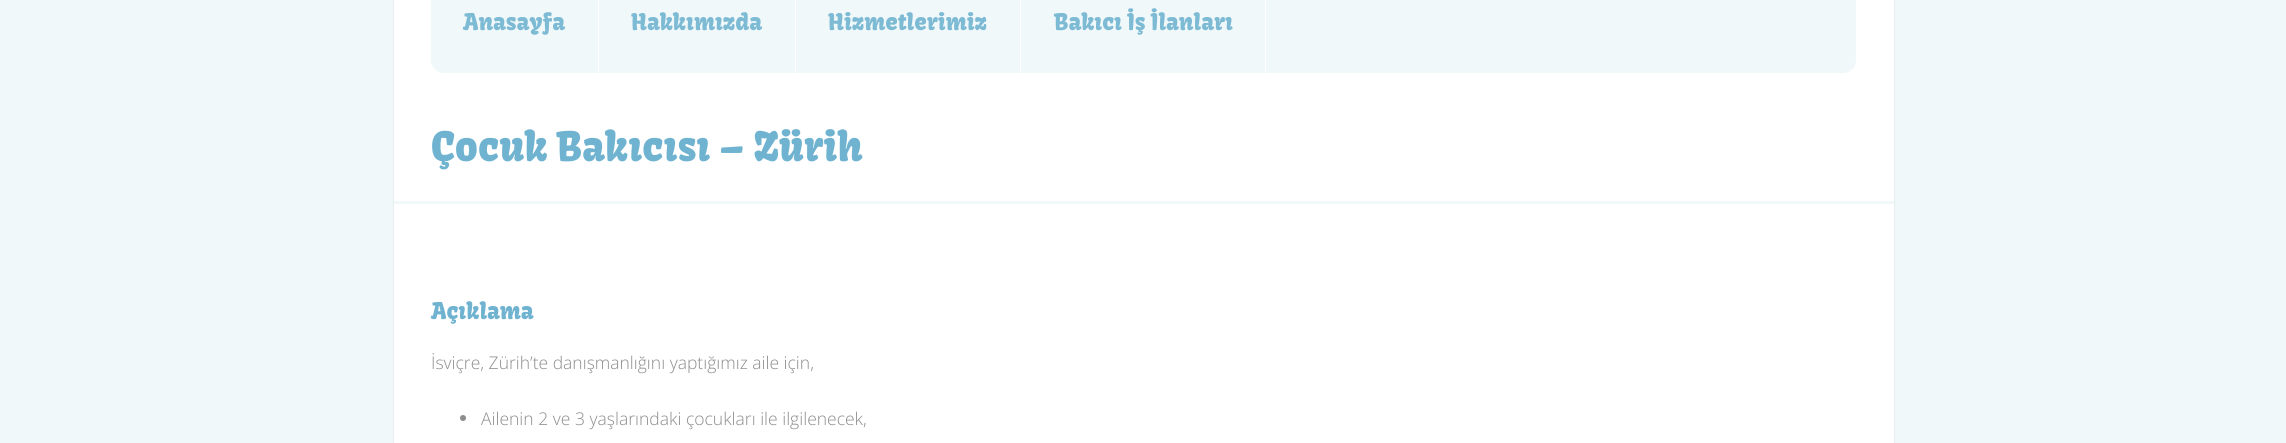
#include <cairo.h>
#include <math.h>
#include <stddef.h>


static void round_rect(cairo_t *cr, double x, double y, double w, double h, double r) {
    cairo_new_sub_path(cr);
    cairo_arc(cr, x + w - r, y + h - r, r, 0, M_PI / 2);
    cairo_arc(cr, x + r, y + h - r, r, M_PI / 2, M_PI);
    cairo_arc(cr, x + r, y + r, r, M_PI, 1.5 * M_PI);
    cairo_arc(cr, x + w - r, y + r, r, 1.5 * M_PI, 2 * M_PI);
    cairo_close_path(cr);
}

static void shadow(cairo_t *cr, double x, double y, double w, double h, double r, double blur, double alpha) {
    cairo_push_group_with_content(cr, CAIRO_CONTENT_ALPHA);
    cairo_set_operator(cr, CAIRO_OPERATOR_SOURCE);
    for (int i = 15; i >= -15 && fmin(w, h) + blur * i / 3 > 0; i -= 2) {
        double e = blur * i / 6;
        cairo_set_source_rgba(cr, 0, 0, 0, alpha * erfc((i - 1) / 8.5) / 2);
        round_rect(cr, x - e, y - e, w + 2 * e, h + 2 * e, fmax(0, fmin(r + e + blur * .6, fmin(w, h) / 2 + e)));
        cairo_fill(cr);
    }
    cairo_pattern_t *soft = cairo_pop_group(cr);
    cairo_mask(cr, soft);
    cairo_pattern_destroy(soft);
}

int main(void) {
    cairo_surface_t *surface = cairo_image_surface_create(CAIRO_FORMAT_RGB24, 2286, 443);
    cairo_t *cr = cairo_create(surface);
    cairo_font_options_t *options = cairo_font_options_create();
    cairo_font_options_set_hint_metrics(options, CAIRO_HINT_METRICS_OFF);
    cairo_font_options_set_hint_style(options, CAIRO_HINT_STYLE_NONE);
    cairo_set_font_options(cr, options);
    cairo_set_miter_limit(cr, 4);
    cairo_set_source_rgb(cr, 0.945, 0.969, 0.976);
    cairo_paint(cr);
    cairo_set_source_rgb(cr, 0, 0, 0);
    shadow(cr, 394, -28, 1500, 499, 25, 1, 0.1);
    cairo_set_source_rgb(cr, 1, 1, 1);
    cairo_rectangle(cr, 394, 0, 1500, 443);
    cairo_fill(cr);
    cairo_set_source_rgb(cr, 0.941, 0.969, 0.98);
    round_rect(cr, 431, -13, 1425, 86, 13);
    cairo_fill(cr);
    cairo_set_source_rgb(cr, 1, 1, 1);
    cairo_rectangle(cr, 598, 0, 1, 73);
    cairo_fill(cr);
    cairo_select_font_face(cr, "Kavoon", CAIRO_FONT_SLANT_NORMAL, CAIRO_FONT_WEIGHT_NORMAL);
    cairo_set_font_size(cr, 22.5);
    cairo_set_source_rgb(cr, 0.49, 0.729, 0.831);
    cairo_move_to(cr, 463, 30);
    cairo_show_text(cr, "Anasayfa");
    cairo_set_source_rgb(cr, 1, 1, 1);
    cairo_rectangle(cr, 795, 0, 1, 73);
    cairo_fill(cr);
    cairo_set_source_rgb(cr, 0.49, 0.729, 0.831);
    cairo_move_to(cr, 631, 30);
    cairo_show_text(cr, "Hakkımızda");
    cairo_set_source_rgb(cr, 1, 1, 1);
    cairo_rectangle(cr, 1020, 0, 1, 73);
    cairo_fill(cr);
    cairo_set_source_rgb(cr, 0.49, 0.729, 0.831);
    cairo_move_to(cr, 828, 30);
    cairo_show_text(cr, "Hizmetlerimiz");
    cairo_set_source_rgb(cr, 1, 1, 1);
    cairo_rectangle(cr, 1265, 0, 1, 73);
    cairo_fill(cr);
    cairo_set_source_rgb(cr, 0.49, 0.729, 0.831);
    cairo_move_to(cr, 1054, 30);
    cairo_show_text(cr, "Bakıcı İş İlanları");
    cairo_set_source_rgb(cr, 0.941, 0.969, 0.98);
    cairo_rectangle(cr, 394, 201, 1500, 3);
    cairo_fill(cr);
    cairo_set_font_size(cr, 40);
    cairo_set_source_rgb(cr, 0.439, 0.702, 0.816);
    cairo_move_to(cr, 431, 161);
    cairo_show_text(cr, "Çocuk Bakıcısı – Zürih");
    cairo_set_font_size(cr, 22.5);
    cairo_move_to(cr, 431, 319);
    cairo_show_text(cr, "Açıklama");
    cairo_select_font_face(cr, "Open Sans Light", CAIRO_FONT_SLANT_NORMAL, CAIRO_FONT_WEIGHT_NORMAL);
    cairo_set_font_size(cr, 17.5);
    cairo_set_source_rgb(cr, 0.549, 0.549, 0.549);
    cairo_move_to(cr, 431, 369);
    cairo_show_text(cr, "İsviçre, Zürih’te danışmanlığını yaptığımız aile için,");
    cairo_new_path(cr);
    cairo_arc(cr, 463, 418, 3, 0, 2 * M_PI);
    cairo_fill(cr);
    cairo_move_to(cr, 481, 425);
    cairo_show_text(cr, "Ailenin 2 ve 3 yaşlarındaki çocukları ile ilgilenecek,");
    cairo_surface_write_to_png(surface, "page.png");
    cairo_font_options_destroy(options);
    cairo_destroy(cr);
    cairo_surface_destroy(surface);
    return 0;
}
